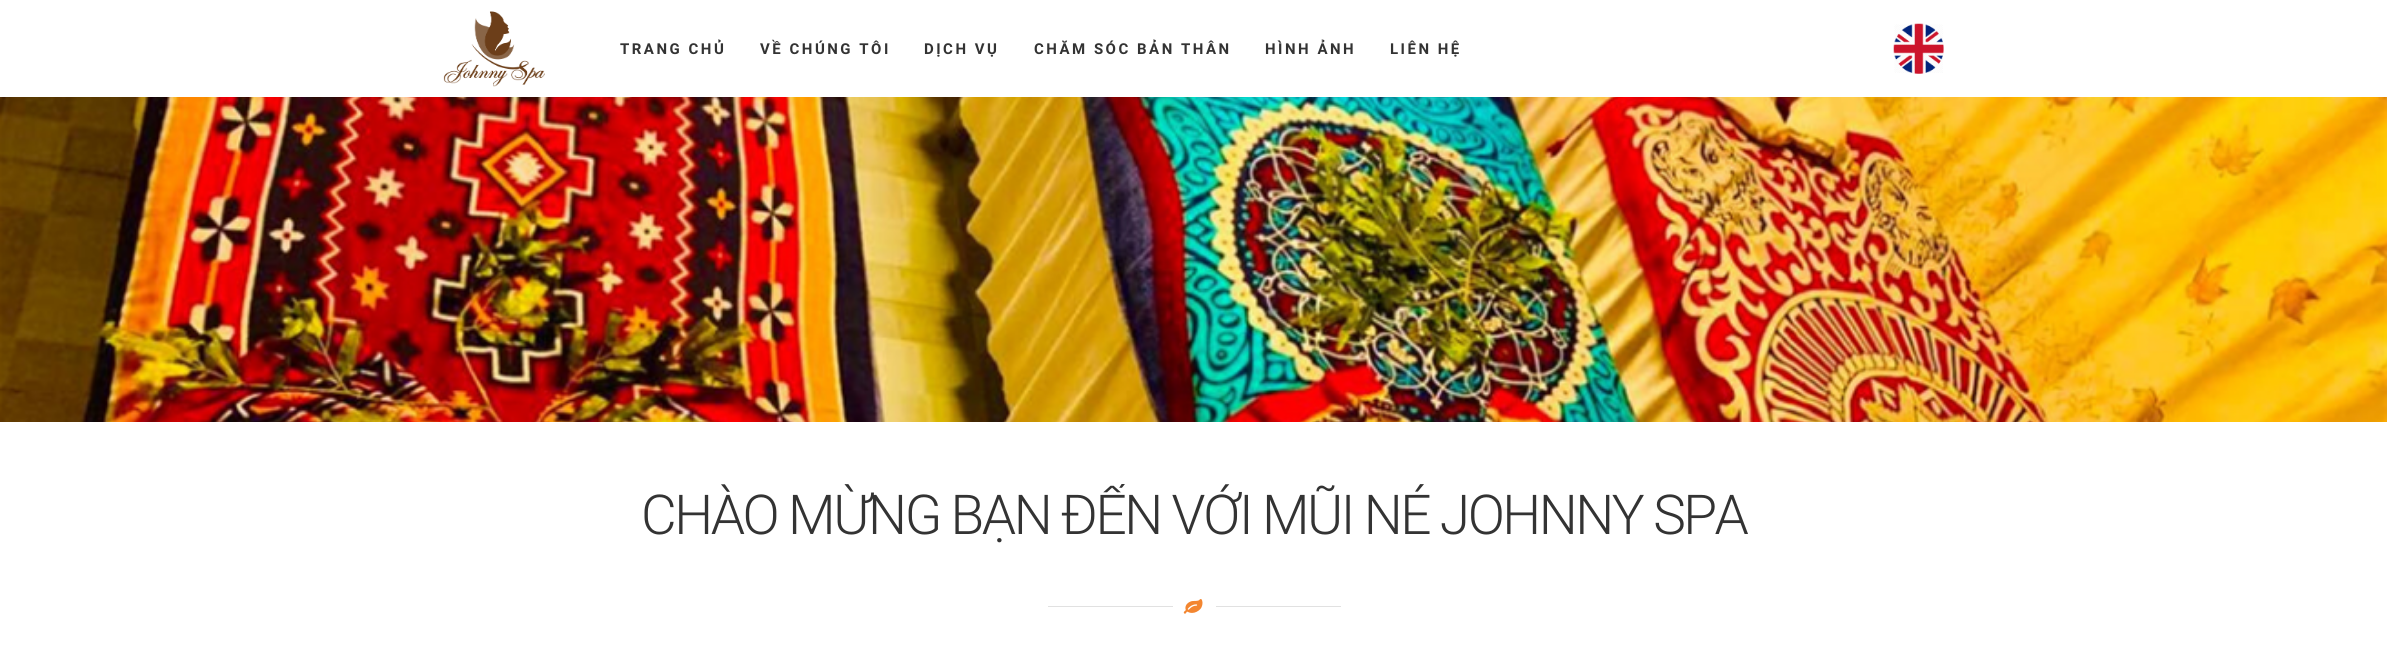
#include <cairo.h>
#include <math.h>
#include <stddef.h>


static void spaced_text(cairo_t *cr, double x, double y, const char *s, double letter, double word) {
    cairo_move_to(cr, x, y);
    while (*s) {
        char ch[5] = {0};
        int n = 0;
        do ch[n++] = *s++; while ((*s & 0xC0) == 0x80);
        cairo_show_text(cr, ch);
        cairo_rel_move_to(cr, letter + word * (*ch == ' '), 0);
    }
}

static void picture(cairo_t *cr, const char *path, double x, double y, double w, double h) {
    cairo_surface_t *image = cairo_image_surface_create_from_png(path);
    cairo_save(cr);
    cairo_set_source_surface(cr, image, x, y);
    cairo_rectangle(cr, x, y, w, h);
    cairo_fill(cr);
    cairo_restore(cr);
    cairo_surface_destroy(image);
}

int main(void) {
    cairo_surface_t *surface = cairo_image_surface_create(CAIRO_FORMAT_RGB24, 2387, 646);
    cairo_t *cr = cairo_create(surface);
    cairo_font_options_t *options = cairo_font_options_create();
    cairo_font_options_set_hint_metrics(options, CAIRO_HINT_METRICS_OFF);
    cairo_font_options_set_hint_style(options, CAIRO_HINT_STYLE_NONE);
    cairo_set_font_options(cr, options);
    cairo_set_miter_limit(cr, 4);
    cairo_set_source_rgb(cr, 1, 1, 1);
    cairo_paint(cr);
    picture(cr, "img1.png", 443, 11, 102, 76);
    cairo_select_font_face(cr, "Roboto", CAIRO_FONT_SLANT_NORMAL, CAIRO_FONT_WEIGHT_BOLD);
    cairo_set_font_size(cr, 15);
    cairo_set_source_rgb(cr, 0.2, 0.2, 0.2);
    spaced_text(cr, 620, 54, "TRANG CHỦ", 2.5, 0);
    spaced_text(cr, 760, 54, "VỀ CHÚNG TÔI", 2.5, 0);
    spaced_text(cr, 924, 54, "DỊCH VỤ", 2.5, 0);
    spaced_text(cr, 1034, 54, "CHĂM SÓC BẢN THÂN", 2.5, 0);
    spaced_text(cr, 1265, 54, "HÌNH ẢNH", 2.5, 0);
    spaced_text(cr, 1390, 54, "LIÊN HỆ", 2.5, 0);
    picture(cr, "img2.png", 1893, 23, 51, 51);
    picture(cr, "img3.png", 0, 97, 2387, 325);
    cairo_save(cr);
    cairo_rectangle(cr, 444, 484, 1500, 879);
    cairo_clip(cr);
    cairo_select_font_face(cr, "Roboto Light", CAIRO_FONT_SLANT_NORMAL, CAIRO_FONT_WEIGHT_NORMAL);
    cairo_set_font_size(cr, 55);
    spaced_text(cr, 641, 534, "CHÀO MỪNG BẠN ĐẾN VỚI MŨI NÉ JOHNNY SPA", -2.5, 0);
    cairo_restore(cr);
    cairo_set_source_rgb(cr, 0.882, 0.882, 0.882);
    cairo_rectangle(cr, 1048, 606, 293, 1);
    cairo_fill(cr);
    cairo_set_source_rgb(cr, 1, 1, 1);
    cairo_rectangle(cr, 1173, 606, 43, 1);
    cairo_fill(cr);
    picture(cr, "img4.png", 1183, 599, 20, 15);
    cairo_surface_write_to_png(surface, "page.png");
    cairo_font_options_destroy(options);
    cairo_destroy(cr);
    cairo_surface_destroy(surface);
    return 0;
}
